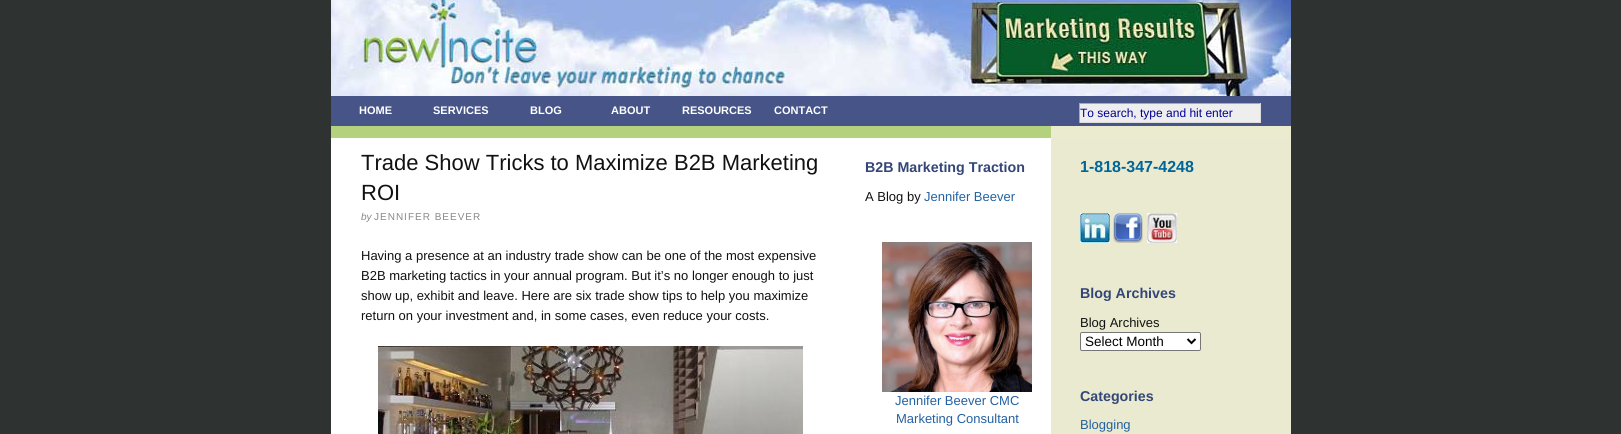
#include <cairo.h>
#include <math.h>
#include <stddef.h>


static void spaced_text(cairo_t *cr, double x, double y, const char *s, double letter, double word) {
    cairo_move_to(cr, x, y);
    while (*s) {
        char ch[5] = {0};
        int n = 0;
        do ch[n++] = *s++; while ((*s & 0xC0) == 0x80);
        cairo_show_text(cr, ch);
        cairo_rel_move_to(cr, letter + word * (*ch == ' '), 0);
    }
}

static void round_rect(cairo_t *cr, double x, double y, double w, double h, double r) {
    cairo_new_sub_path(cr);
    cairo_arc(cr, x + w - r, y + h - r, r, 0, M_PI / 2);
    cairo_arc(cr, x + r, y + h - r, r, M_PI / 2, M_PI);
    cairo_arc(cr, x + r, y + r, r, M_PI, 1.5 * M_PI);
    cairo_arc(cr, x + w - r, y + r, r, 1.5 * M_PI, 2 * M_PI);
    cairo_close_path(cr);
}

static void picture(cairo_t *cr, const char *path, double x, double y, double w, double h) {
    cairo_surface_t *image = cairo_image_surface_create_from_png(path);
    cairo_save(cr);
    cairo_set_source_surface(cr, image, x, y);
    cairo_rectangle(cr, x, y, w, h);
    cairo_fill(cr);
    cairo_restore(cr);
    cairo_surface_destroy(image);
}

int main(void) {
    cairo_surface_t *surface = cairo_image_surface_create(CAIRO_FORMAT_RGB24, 1621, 434);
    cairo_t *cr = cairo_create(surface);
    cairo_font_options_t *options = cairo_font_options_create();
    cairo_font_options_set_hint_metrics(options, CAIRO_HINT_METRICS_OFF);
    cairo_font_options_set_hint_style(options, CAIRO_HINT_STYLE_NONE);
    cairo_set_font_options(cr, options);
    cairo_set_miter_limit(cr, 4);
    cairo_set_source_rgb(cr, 0.18, 0.196, 0.192);
    cairo_paint(cr);
    cairo_set_source_rgb(cr, 0.918, 0.918, 0.816);
    cairo_rectangle(cr, 1051, 126, 240, 12);
    cairo_fill(cr);
    picture(cr, "img1.png", 331, 0, 960, 96);
    cairo_set_source_rgb(cr, 0.275, 0.329, 0.533);
    cairo_rectangle(cr, 331, 96, 960, 30);
    cairo_fill(cr);
    cairo_select_font_face(cr, "Liberation Sans", CAIRO_FONT_SLANT_NORMAL, CAIRO_FONT_WEIGHT_BOLD);
    cairo_set_font_size(cr, 11);
    cairo_set_source_rgb(cr, 1, 1, 1);
    cairo_move_to(cr, 359, 114);
    cairo_show_text(cr, "HOME");
    cairo_move_to(cr, 433, 114);
    cairo_show_text(cr, "SERVICES");
    cairo_move_to(cr, 530, 114);
    cairo_show_text(cr, "BLOG");
    cairo_move_to(cr, 611, 114);
    cairo_show_text(cr, "ABOUT");
    cairo_move_to(cr, 682, 114);
    cairo_show_text(cr, "RESOURCES");
    cairo_move_to(cr, 774, 114);
    cairo_show_text(cr, "CONTACT");
    cairo_set_source_rgb(cr, 0.933, 0.933, 0.933);
    cairo_rectangle(cr, 1080, 104, 180, 18);
    cairo_fill(cr);
    cairo_set_source_rgb(cr, 0.667, 0.667, 0.667);
    cairo_rectangle(cr, 1079, 103, 182, 1);
    cairo_fill(cr);
    cairo_set_source_rgb(cr, 0.867, 0.867, 0.867);
    cairo_rectangle(cr, 1260, 103, 1, 20);
    cairo_fill(cr);
    cairo_rectangle(cr, 1079, 122, 182, 1);
    cairo_fill(cr);
    cairo_set_source_rgb(cr, 0.667, 0.667, 0.667);
    cairo_rectangle(cr, 1079, 103, 1, 20);
    cairo_fill(cr);
    cairo_select_font_face(cr, "Liberation Sans", CAIRO_FONT_SLANT_NORMAL, CAIRO_FONT_WEIGHT_NORMAL);
    cairo_set_font_size(cr, 12);
    cairo_set_source_rgb(cr, 0, 0, 0.6);
    cairo_move_to(cr, 1080, 117);
    cairo_show_text(cr, "To search, type and hit enter");
    cairo_set_source_rgb(cr, 0.706, 0.82, 0.49);
    cairo_rectangle(cr, 331, 126, 720, 12);
    cairo_fill(cr);
    picture(cr, "img2.png", 331, 138, 960, 296);
    cairo_set_font_size(cr, 22);
    cairo_set_source_rgb(cr, 0.067, 0.067, 0.067);
    cairo_move_to(cr, 361, 170);
    cairo_show_text(cr, "Trade Show Tricks to Maximize B2B Marketing");
    cairo_move_to(cr, 361, 200);
    cairo_show_text(cr, "ROI");
    cairo_select_font_face(cr, "Liberation Sans", CAIRO_FONT_SLANT_ITALIC, CAIRO_FONT_WEIGHT_NORMAL);
    cairo_set_font_size(cr, 10);
    cairo_set_source_rgb(cr, 0.533, 0.533, 0.533);
    cairo_move_to(cr, 361, 220);
    cairo_show_text(cr, "by");
    cairo_select_font_face(cr, "Liberation Sans", CAIRO_FONT_SLANT_NORMAL, CAIRO_FONT_WEIGHT_NORMAL);
    spaced_text(cr, 374, 220, "JENNIFER BEEVER", 1, 0);
    cairo_set_font_size(cr, 13);
    cairo_set_source_rgb(cr, 0.067, 0.067, 0.067);
    cairo_move_to(cr, 361, 260);
    cairo_show_text(cr, "Having a presence at an industry trade show can be one of the most expensive");
    cairo_move_to(cr, 361, 280);
    cairo_show_text(cr, "B2B marketing tactics in your annual program. But it’s no longer enough to just");
    cairo_move_to(cr, 361, 300);
    cairo_show_text(cr, "show up, exhibit and leave. Here are six trade show tips to help you maximize");
    cairo_move_to(cr, 361, 320);
    cairo_show_text(cr, "return on your investment and, in some cases, even reduce your costs.");
    picture(cr, "img3.png", 378, 346, 425, 88);
    cairo_select_font_face(cr, "Liberation Sans", CAIRO_FONT_SLANT_NORMAL, CAIRO_FONT_WEIGHT_BOLD);
    cairo_set_font_size(cr, 14.25);
    cairo_set_source_rgb(cr, 0.2, 0.275, 0.467);
    cairo_move_to(cr, 865, 172);
    cairo_show_text(cr, "B2B Marketing Traction");
    cairo_select_font_face(cr, "Liberation Sans", CAIRO_FONT_SLANT_NORMAL, CAIRO_FONT_WEIGHT_NORMAL);
    cairo_set_font_size(cr, 13);
    cairo_set_source_rgb(cr, 0.067, 0.067, 0.067);
    cairo_move_to(cr, 865, 201);
    cairo_show_text(cr, "A Blog by");
    cairo_set_source_rgb(cr, 0.137, 0.38, 0.631);
    cairo_move_to(cr, 924, 201);
    cairo_show_text(cr, "Jennifer Beever");
    picture(cr, "img4.png", 882, 242, 150, 150);
    cairo_move_to(cr, 895, 405);
    cairo_show_text(cr, "Jennifer Beever CMC");
    cairo_move_to(cr, 896, 423);
    cairo_show_text(cr, "Marketing Consultant");
    cairo_select_font_face(cr, "Liberation Sans", CAIRO_FONT_SLANT_NORMAL, CAIRO_FONT_WEIGHT_BOLD);
    cairo_set_font_size(cr, 16);
    cairo_set_source_rgb(cr, 0, 0.4, 0.6);
    cairo_move_to(cr, 1080, 172);
    cairo_show_text(cr, "1-818-347-4248");
    picture(cr, "img5.png", 1080, 213, 30, 30);
    picture(cr, "img6.png", 1113, 213, 30, 30);
    picture(cr, "img7.png", 1147, 213, 30, 30);
    cairo_set_font_size(cr, 14.25);
    cairo_set_source_rgb(cr, 0.2, 0.275, 0.467);
    cairo_move_to(cr, 1080, 298);
    cairo_show_text(cr, "Blog Archives");
    cairo_select_font_face(cr, "Liberation Sans", CAIRO_FONT_SLANT_NORMAL, CAIRO_FONT_WEIGHT_NORMAL);
    cairo_set_font_size(cr, 13);
    cairo_set_source_rgb(cr, 0.067, 0.067, 0.067);
    cairo_move_to(cr, 1080, 327);
    cairo_show_text(cr, "Blog Archives");
    cairo_set_source_rgb(cr, 1, 1, 1);
    round_rect(cr, 1080.5, 332.5, 120, 18, 1.5);
    cairo_fill_preserve(cr);
    cairo_set_source_rgb(cr, 0.463, 0.463, 0.463);
    cairo_set_line_width(cr, 1);
    cairo_stroke(cr);
    cairo_new_path(cr);
    cairo_move_to(cr, 1187.5, 339);
    cairo_line_to(cr, 1191.5, 343);
    cairo_line_to(cr, 1195.5, 339);
    cairo_set_source_rgb(cr, 0, 0, 0);
    cairo_set_line_width(cr, 2);
    cairo_stroke(cr);
    cairo_set_font_size(cr, 13.5);
    cairo_move_to(cr, 1085, 346);
    cairo_show_text(cr, "Select Month");
    cairo_select_font_face(cr, "Liberation Sans", CAIRO_FONT_SLANT_NORMAL, CAIRO_FONT_WEIGHT_BOLD);
    cairo_set_font_size(cr, 14.25);
    cairo_set_source_rgb(cr, 0.2, 0.275, 0.467);
    cairo_move_to(cr, 1080, 401);
    cairo_show_text(cr, "Categories");
    cairo_select_font_face(cr, "Liberation Sans", CAIRO_FONT_SLANT_NORMAL, CAIRO_FONT_WEIGHT_NORMAL);
    cairo_set_font_size(cr, 13);
    cairo_set_source_rgb(cr, 0.137, 0.38, 0.631);
    cairo_move_to(cr, 1080, 429);
    cairo_show_text(cr, "Blogging");
    cairo_surface_write_to_png(surface, "page.png");
    cairo_font_options_destroy(options);
    cairo_destroy(cr);
    cairo_surface_destroy(surface);
    return 0;
}
